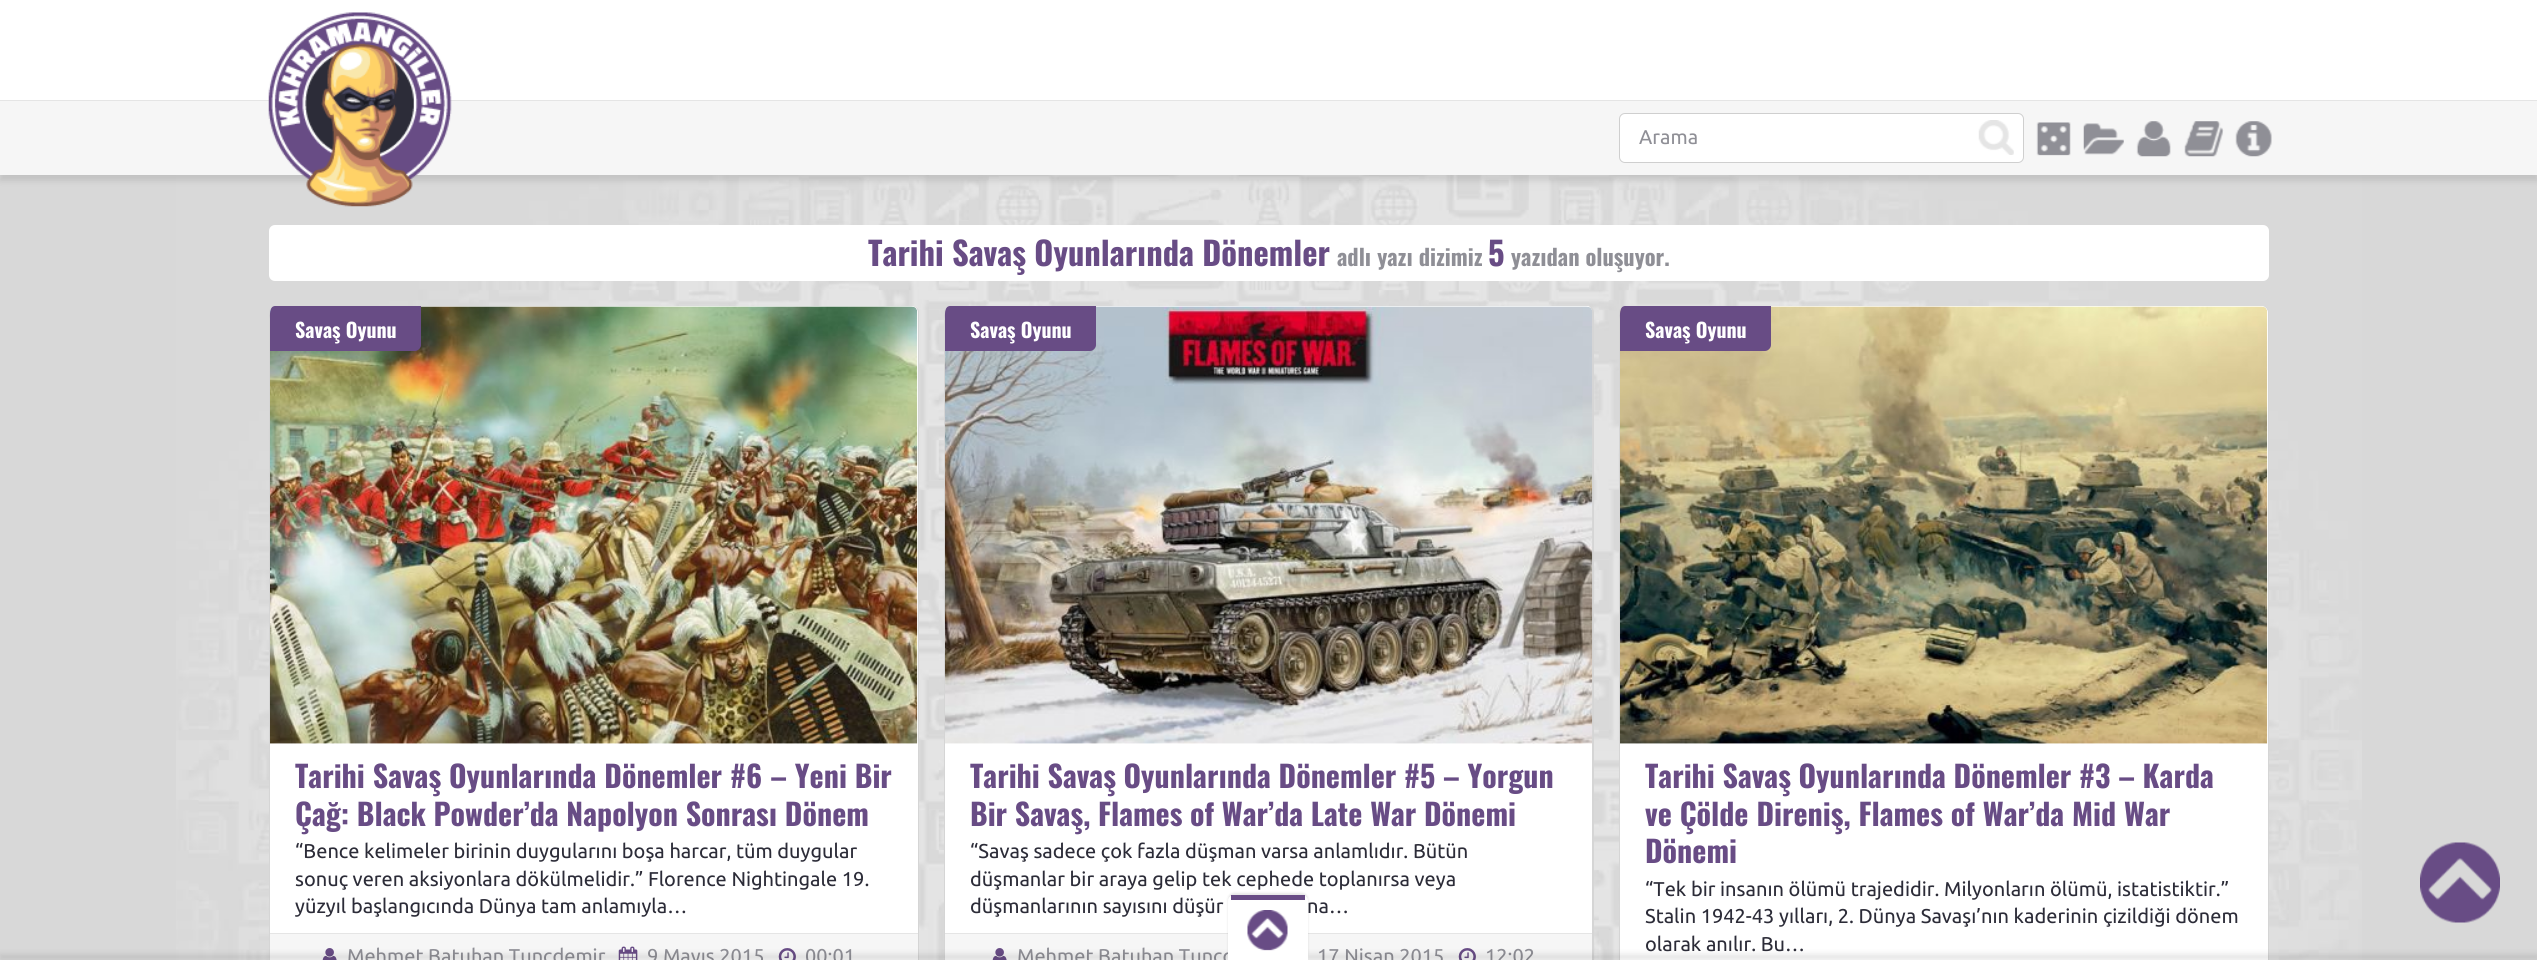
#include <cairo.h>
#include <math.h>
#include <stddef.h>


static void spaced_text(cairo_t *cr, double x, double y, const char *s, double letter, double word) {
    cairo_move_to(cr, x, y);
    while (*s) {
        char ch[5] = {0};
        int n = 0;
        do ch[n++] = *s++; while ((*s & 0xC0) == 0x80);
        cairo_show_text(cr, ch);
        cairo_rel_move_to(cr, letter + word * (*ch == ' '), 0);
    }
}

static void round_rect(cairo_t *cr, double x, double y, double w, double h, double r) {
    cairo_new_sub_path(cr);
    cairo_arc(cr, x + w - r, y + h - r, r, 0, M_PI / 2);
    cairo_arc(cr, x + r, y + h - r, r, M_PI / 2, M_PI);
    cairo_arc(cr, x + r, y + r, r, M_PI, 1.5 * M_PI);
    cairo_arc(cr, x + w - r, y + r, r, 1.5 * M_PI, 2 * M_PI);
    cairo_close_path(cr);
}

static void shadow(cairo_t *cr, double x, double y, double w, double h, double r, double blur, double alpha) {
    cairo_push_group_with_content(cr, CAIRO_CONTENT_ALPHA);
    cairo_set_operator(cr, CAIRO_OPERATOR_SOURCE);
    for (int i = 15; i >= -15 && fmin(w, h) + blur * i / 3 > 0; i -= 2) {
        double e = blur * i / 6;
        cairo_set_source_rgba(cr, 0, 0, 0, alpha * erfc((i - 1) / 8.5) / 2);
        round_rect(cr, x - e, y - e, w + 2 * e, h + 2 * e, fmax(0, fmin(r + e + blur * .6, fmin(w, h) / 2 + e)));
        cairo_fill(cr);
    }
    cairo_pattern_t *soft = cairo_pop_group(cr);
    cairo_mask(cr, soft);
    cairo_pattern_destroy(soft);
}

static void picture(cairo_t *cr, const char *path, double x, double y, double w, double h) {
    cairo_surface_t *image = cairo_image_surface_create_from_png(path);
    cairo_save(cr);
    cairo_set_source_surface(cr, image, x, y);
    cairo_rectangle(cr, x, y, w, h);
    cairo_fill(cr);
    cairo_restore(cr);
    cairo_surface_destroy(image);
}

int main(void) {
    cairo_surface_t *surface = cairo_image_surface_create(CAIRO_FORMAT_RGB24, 2537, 966);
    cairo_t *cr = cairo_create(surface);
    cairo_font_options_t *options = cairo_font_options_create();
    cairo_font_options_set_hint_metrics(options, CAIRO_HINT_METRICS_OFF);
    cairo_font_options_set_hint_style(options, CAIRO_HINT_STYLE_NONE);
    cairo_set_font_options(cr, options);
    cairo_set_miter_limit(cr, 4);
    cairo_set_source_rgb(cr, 0.847, 0.847, 0.847);
    cairo_paint(cr);
    picture(cr, "img1.png", 176, 175, 2186, 785);
    cairo_set_source_rgb(cr, 1, 1, 1);
    cairo_rectangle(cr, 0, 0, 2537, 100);
    cairo_fill(cr);
    cairo_set_source_rgb(cr, 0, 0, 0);
    shadow(cr, 0, 106, 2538, 75, 0, 3, 0.1);
    cairo_set_source_rgb(cr, 0.961, 0.961, 0.961);
    cairo_rectangle(cr, 0, 101, 2537, 74);
    cairo_fill(cr);
    cairo_set_source_rgb(cr, 0.898, 0.898, 0.898);
    cairo_rectangle(cr, 0, 100, 2537, 1);
    cairo_fill(cr);
    picture(cr, "img2.png", 268, 12, 184, 195);
    cairo_set_source_rgb(cr, 1, 1, 1);
    round_rect(cr, 1619.5, 113.5, 404, 49, 5.5);
    cairo_fill_preserve(cr);
    cairo_set_source_rgb(cr, 0.812, 0.812, 0.812);
    cairo_set_line_width(cr, 1);
    cairo_stroke(cr);
    cairo_select_font_face(cr, "Ubuntu", CAIRO_FONT_SLANT_NORMAL, CAIRO_FONT_WEIGHT_NORMAL);
    cairo_set_font_size(cr, 20);
    cairo_set_source_rgb(cr, 0.561, 0.561, 0.588);
    cairo_move_to(cr, 1639, 144);
    cairo_show_text(cr, "Arama");
    picture(cr, "img3.png", 1978, 120, 36, 35);
    picture(cr, "img4.png", 2036, 122, 35, 34);
    picture(cr, "img5.png", 2083, 123, 41, 32);
    picture(cr, "img6.png", 2136, 121, 35, 36);
    picture(cr, "img7.png", 2184, 121, 40, 36);
    picture(cr, "img8.png", 2235, 121, 37, 36);
    cairo_set_source_rgb(cr, 1, 1, 1);
    round_rect(cr, 269, 225, 2000, 56, 6);
    cairo_fill(cr);
    cairo_select_font_face(cr, "Oswald", CAIRO_FONT_SLANT_NORMAL, CAIRO_FONT_WEIGHT_BOLD);
    cairo_set_font_size(cr, 32.5);
    cairo_set_source_rgb(cr, 0.408, 0.298, 0.522);
    cairo_move_to(cr, 868, 266);
    cairo_show_text(cr, "Tarihi Savaş Oyunlarında Dönemler");
    cairo_set_font_size(cr, 22.5);
    cairo_set_source_rgb(cr, 0.561, 0.561, 0.588);
    spaced_text(cr, 1337, 266, "adlı yazı dizimiz", 0, 0.25);
    cairo_set_font_size(cr, 32.5);
    cairo_set_source_rgb(cr, 0.408, 0.298, 0.522);
    cairo_move_to(cr, 1488, 266);
    cairo_show_text(cr, "5");
    cairo_set_font_size(cr, 22.5);
    cairo_set_source_rgb(cr, 0.561, 0.561, 0.588);
    cairo_move_to(cr, 1511, 266);
    cairo_show_text(cr, "yazıdan oluşuyor.");
    cairo_set_source_rgb(cr, 1, 1, 1);
    cairo_new_path(cr);
    cairo_move_to(cr, 275, 306);
    cairo_line_to(cr, 912, 306);
    cairo_curve_to(cr, 915, 306, 918, 309, 918, 312);
    cairo_line_to(cr, 918, 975);
    cairo_curve_to(cr, 918, 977, 915, 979, 912, 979);
    cairo_line_to(cr, 275, 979);
    cairo_curve_to(cr, 272, 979, 270, 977, 270, 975);
    cairo_line_to(cr, 270, 312);
    cairo_curve_to(cr, 270, 309, 272, 306, 275, 306);
    cairo_close_path(cr);
    cairo_fill(cr);
    cairo_set_source_rgb(cr, 0.835, 0.835, 0.835);
    cairo_set_fill_rule(cr, CAIRO_FILL_RULE_EVEN_ODD);
    cairo_new_path(cr);
    cairo_move_to(cr, 275, 306);
    cairo_line_to(cr, 912, 306);
    cairo_curve_to(cr, 916, 306, 919, 309, 919, 312);
    cairo_line_to(cr, 919, 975);
    cairo_curve_to(cr, 919, 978, 916, 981, 912, 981);
    cairo_line_to(cr, 275, 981);
    cairo_curve_to(cr, 272, 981, 269, 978, 269, 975);
    cairo_line_to(cr, 269, 312);
    cairo_curve_to(cr, 269, 309, 272, 306, 275, 306);
    cairo_close_path(cr);
    cairo_move_to(cr, 275, 306);
    cairo_line_to(cr, 912, 306);
    cairo_curve_to(cr, 915, 306, 918, 309, 918, 312);
    cairo_line_to(cr, 918, 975);
    cairo_curve_to(cr, 918, 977, 915, 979, 912, 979);
    cairo_line_to(cr, 275, 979);
    cairo_curve_to(cr, 272, 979, 270, 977, 270, 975);
    cairo_line_to(cr, 270, 312);
    cairo_curve_to(cr, 270, 309, 272, 306, 275, 306);
    cairo_close_path(cr);
    cairo_fill(cr);
    picture(cr, "img9.png", 270, 306, 648, 438);
    cairo_set_source_rgb(cr, 0.408, 0.298, 0.522);
    cairo_set_fill_rule(cr, CAIRO_FILL_RULE_WINDING);
    cairo_new_path(cr);
    cairo_move_to(cr, 275, 306);
    cairo_line_to(cr, 421, 306);
    cairo_line_to(cr, 421, 345);
    cairo_curve_to(cr, 421, 348, 418, 351, 415, 351);
    cairo_line_to(cr, 270, 351);
    cairo_line_to(cr, 270, 319);
    cairo_curve_to(cr, 270, 316, 269, 306, 275, 306);
    cairo_close_path(cr);
    cairo_fill(cr);
    cairo_set_font_size(cr, 20);
    cairo_set_source_rgb(cr, 1, 1, 1);
    cairo_move_to(cr, 295, 338);
    cairo_show_text(cr, "Savaş Oyunu");
    cairo_set_font_size(cr, 30);
    cairo_set_source_rgb(cr, 0.408, 0.298, 0.522);
    spaced_text(cr, 295, 788, "Tarihi Savaş Oyunlarında Dönemler #6 – Yeni Bir", 0, 0.25);
    cairo_move_to(cr, 295, 826);
    cairo_show_text(cr, "Çağ: Black Powder’da Napolyon Sonrası Dönem");
    cairo_select_font_face(cr, "Ubuntu", CAIRO_FONT_SLANT_NORMAL, CAIRO_FONT_WEIGHT_NORMAL);
    cairo_set_font_size(cr, 20);
    cairo_set_source_rgb(cr, 0.173, 0.173, 0.22);
    cairo_move_to(cr, 295, 858);
    cairo_show_text(cr, "“Bence kelimeler birinin duygularını boşa harcar, tüm duygular");
    cairo_move_to(cr, 295, 886);
    cairo_show_text(cr, "sonuç veren aksiyonlara dökülmelidir.” Florence Nightingale 19.");
    cairo_move_to(cr, 295, 913);
    cairo_show_text(cr, "yüzyıl başlangıcında Dünya tam anlamıyla…");
    cairo_set_source_rgb(cr, 0.961, 0.961, 0.961);
    cairo_new_path(cr);
    cairo_move_to(cr, 270, 933);
    cairo_line_to(cr, 270, 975);
    cairo_curve_to(cr, 270, 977, 272, 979, 275, 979);
    cairo_line_to(cr, 912, 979);
    cairo_curve_to(cr, 915, 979, 918, 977, 918, 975);
    cairo_line_to(cr, 918, 933);
    cairo_close_path(cr);
    cairo_fill(cr);
    cairo_set_source_rgb(cr, 0.898, 0.898, 0.898);
    cairo_rectangle(cr, 270, 933, 648, 1);
    cairo_fill(cr);
    picture(cr, "img10.png", 322, 948, 15, 12);
    cairo_set_source_rgb(cr, 0.561, 0.561, 0.588);
    cairo_move_to(cr, 347, 963);
    cairo_show_text(cr, "Mehmet Batuhan Tunçdemir");
    picture(cr, "img11.png", 618, 946, 20, 14);
    cairo_move_to(cr, 647, 963);
    cairo_show_text(cr, "9 Mayıs 2015");
    picture(cr, "img12.png", 778, 948, 18, 12);
    cairo_move_to(cr, 805, 963);
    cairo_show_text(cr, "00:01");
    cairo_set_source_rgb(cr, 1, 1, 1);
    cairo_new_path(cr);
    cairo_move_to(cr, 950, 306);
    cairo_line_to(cr, 1588, 306);
    cairo_curve_to(cr, 1590, 306, 1592, 309, 1592, 312);
    cairo_line_to(cr, 1592, 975);
    cairo_curve_to(cr, 1592, 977, 1590, 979, 1588, 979);
    cairo_line_to(cr, 950, 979);
    cairo_curve_to(cr, 947, 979, 945, 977, 945, 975);
    cairo_line_to(cr, 945, 312);
    cairo_curve_to(cr, 945, 309, 947, 306, 950, 306);
    cairo_close_path(cr);
    cairo_fill(cr);
    cairo_set_source_rgb(cr, 0.835, 0.835, 0.835);
    cairo_set_fill_rule(cr, CAIRO_FILL_RULE_EVEN_ODD);
    cairo_new_path(cr);
    cairo_move_to(cr, 950, 306);
    cairo_line_to(cr, 1588, 306);
    cairo_curve_to(cr, 1591, 306, 1594, 309, 1594, 312);
    cairo_line_to(cr, 1594, 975);
    cairo_curve_to(cr, 1594, 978, 1591, 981, 1588, 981);
    cairo_line_to(cr, 950, 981);
    cairo_curve_to(cr, 947, 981, 944, 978, 944, 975);
    cairo_line_to(cr, 944, 312);
    cairo_curve_to(cr, 944, 309, 947, 306, 950, 306);
    cairo_close_path(cr);
    cairo_move_to(cr, 950, 306);
    cairo_line_to(cr, 1588, 306);
    cairo_curve_to(cr, 1590, 306, 1592, 309, 1592, 312);
    cairo_line_to(cr, 1592, 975);
    cairo_curve_to(cr, 1592, 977, 1590, 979, 1588, 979);
    cairo_line_to(cr, 950, 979);
    cairo_curve_to(cr, 947, 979, 945, 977, 945, 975);
    cairo_line_to(cr, 945, 312);
    cairo_curve_to(cr, 945, 309, 947, 306, 950, 306);
    cairo_close_path(cr);
    cairo_fill(cr);
    picture(cr, "img13.png", 945, 306, 648, 438);
    cairo_set_source_rgb(cr, 0.408, 0.298, 0.522);
    cairo_set_fill_rule(cr, CAIRO_FILL_RULE_WINDING);
    cairo_new_path(cr);
    cairo_move_to(cr, 950, 306);
    cairo_line_to(cr, 1096, 306);
    cairo_line_to(cr, 1096, 345);
    cairo_curve_to(cr, 1096, 348, 1093, 351, 1090, 351);
    cairo_line_to(cr, 945, 351);
    cairo_line_to(cr, 945, 319);
    cairo_curve_to(cr, 945, 316, 944, 306, 950, 306);
    cairo_close_path(cr);
    cairo_fill(cr);
    cairo_select_font_face(cr, "Oswald", CAIRO_FONT_SLANT_NORMAL, CAIRO_FONT_WEIGHT_BOLD);
    cairo_set_source_rgb(cr, 1, 1, 1);
    cairo_move_to(cr, 970, 338);
    cairo_show_text(cr, "Savaş Oyunu");
    cairo_set_font_size(cr, 30);
    cairo_set_source_rgb(cr, 0.408, 0.298, 0.522);
    cairo_move_to(cr, 970, 788);
    cairo_show_text(cr, "Tarihi Savaş Oyunlarında Dönemler #5 – Yorgun");
    cairo_move_to(cr, 970, 826);
    cairo_show_text(cr, "Bir Savaş, Flames of War’da Late War Dönemi");
    cairo_select_font_face(cr, "Ubuntu", CAIRO_FONT_SLANT_NORMAL, CAIRO_FONT_WEIGHT_NORMAL);
    cairo_set_font_size(cr, 20);
    cairo_set_source_rgb(cr, 0.173, 0.173, 0.22);
    cairo_move_to(cr, 970, 858);
    cairo_show_text(cr, "“Savaş sadece çok fazla düşman varsa anlamlıdır. Bütün");
    cairo_move_to(cr, 970, 886);
    cairo_show_text(cr, "düşmanlar bir araya gelip tek cephede toplanırsa veya");
    cairo_move_to(cr, 970, 913);
    cairo_show_text(cr, "düşmanlarının sayısını düşür");
    cairo_move_to(cr, 1307, 913);
    cairo_show_text(cr, "na…");
    cairo_set_source_rgb(cr, 0.961, 0.961, 0.961);
    cairo_new_path(cr);
    cairo_move_to(cr, 945, 933);
    cairo_line_to(cr, 945, 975);
    cairo_curve_to(cr, 945, 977, 947, 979, 950, 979);
    cairo_line_to(cr, 1588, 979);
    cairo_curve_to(cr, 1590, 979, 1592, 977, 1592, 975);
    cairo_line_to(cr, 1592, 933);
    cairo_close_path(cr);
    cairo_fill(cr);
    cairo_set_source_rgb(cr, 0.898, 0.898, 0.898);
    cairo_rectangle(cr, 945, 933, 647, 1);
    cairo_fill(cr);
    picture(cr, "img10.png", 992, 948, 15, 12);
    cairo_set_source_rgb(cr, 0.561, 0.561, 0.588);
    cairo_move_to(cr, 1017, 963);
    cairo_show_text(cr, "Mehmet Batuhan Tunçd");
    cairo_move_to(cr, 1317, 963);
    cairo_show_text(cr, "17 Nisan 2015");
    picture(cr, "img12.png", 1458, 948, 18, 12);
    cairo_move_to(cr, 1485, 963);
    cairo_show_text(cr, "12:02");
    cairo_set_source_rgb(cr, 1, 1, 1);
    cairo_new_path(cr);
    cairo_move_to(cr, 1625, 306);
    cairo_line_to(cr, 2262, 306);
    cairo_curve_to(cr, 2265, 306, 2268, 309, 2268, 312);
    cairo_line_to(cr, 2268, 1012);
    cairo_curve_to(cr, 2268, 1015, 2265, 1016, 2262, 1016);
    cairo_line_to(cr, 1625, 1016);
    cairo_curve_to(cr, 1622, 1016, 1620, 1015, 1620, 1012);
    cairo_line_to(cr, 1620, 312);
    cairo_curve_to(cr, 1620, 309, 1622, 306, 1625, 306);
    cairo_close_path(cr);
    cairo_fill(cr);
    cairo_set_source_rgb(cr, 0.835, 0.835, 0.835);
    cairo_set_fill_rule(cr, CAIRO_FILL_RULE_EVEN_ODD);
    cairo_new_path(cr);
    cairo_move_to(cr, 1625, 306);
    cairo_line_to(cr, 2262, 306);
    cairo_curve_to(cr, 2266, 306, 2269, 309, 2269, 312);
    cairo_line_to(cr, 2269, 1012);
    cairo_curve_to(cr, 2269, 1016, 2266, 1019, 2262, 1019);
    cairo_line_to(cr, 1625, 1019);
    cairo_curve_to(cr, 1622, 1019, 1619, 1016, 1619, 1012);
    cairo_line_to(cr, 1619, 312);
    cairo_curve_to(cr, 1619, 309, 1622, 306, 1625, 306);
    cairo_close_path(cr);
    cairo_move_to(cr, 1625, 306);
    cairo_line_to(cr, 2262, 306);
    cairo_curve_to(cr, 2265, 306, 2268, 309, 2268, 312);
    cairo_line_to(cr, 2268, 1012);
    cairo_curve_to(cr, 2268, 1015, 2265, 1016, 2262, 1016);
    cairo_line_to(cr, 1625, 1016);
    cairo_curve_to(cr, 1622, 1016, 1620, 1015, 1620, 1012);
    cairo_line_to(cr, 1620, 312);
    cairo_curve_to(cr, 1620, 309, 1622, 306, 1625, 306);
    cairo_close_path(cr);
    cairo_fill(cr);
    picture(cr, "img14.png", 1620, 306, 648, 438);
    cairo_set_source_rgb(cr, 0.408, 0.298, 0.522);
    cairo_set_fill_rule(cr, CAIRO_FILL_RULE_WINDING);
    cairo_new_path(cr);
    cairo_move_to(cr, 1625, 306);
    cairo_line_to(cr, 1771, 306);
    cairo_line_to(cr, 1771, 345);
    cairo_curve_to(cr, 1771, 348, 1768, 351, 1765, 351);
    cairo_line_to(cr, 1620, 351);
    cairo_line_to(cr, 1620, 319);
    cairo_curve_to(cr, 1620, 316, 1619, 306, 1625, 306);
    cairo_close_path(cr);
    cairo_fill(cr);
    cairo_select_font_face(cr, "Oswald", CAIRO_FONT_SLANT_NORMAL, CAIRO_FONT_WEIGHT_BOLD);
    cairo_set_source_rgb(cr, 1, 1, 1);
    cairo_move_to(cr, 1645, 338);
    cairo_show_text(cr, "Savaş Oyunu");
    cairo_set_font_size(cr, 30);
    cairo_set_source_rgb(cr, 0.408, 0.298, 0.522);
    cairo_move_to(cr, 1645, 788);
    cairo_show_text(cr, "Tarihi Savaş Oyunlarında Dönemler #3 – Karda");
    spaced_text(cr, 1645, 826, "ve Çölde Direniş, Flames of War’da Mid War", 0, 0.25);
    cairo_move_to(cr, 1645, 863);
    cairo_show_text(cr, "Dönemi");
    cairo_select_font_face(cr, "Ubuntu", CAIRO_FONT_SLANT_NORMAL, CAIRO_FONT_WEIGHT_NORMAL);
    cairo_set_font_size(cr, 20);
    cairo_set_source_rgb(cr, 0.173, 0.173, 0.22);
    cairo_move_to(cr, 1645, 896);
    cairo_show_text(cr, "“Tek bir insanın ölümü trajedidir. Milyonların ölümü, istatistiktir.”");
    cairo_move_to(cr, 1645, 923);
    cairo_show_text(cr, "Stalin 1942-43 yılları, 2. Dünya Savaşı’nın kaderinin çizildiği dönem");
    cairo_move_to(cr, 1645, 951);
    cairo_show_text(cr, "olarak anılır. Bu…");
    cairo_set_source_rgb(cr, 0, 0, 0);
    shadow(cr, 0, 954, 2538, 6, 0, 3, 0.1);
    picture(cr, "img15.png", 2420, 842, 80, 81);
    cairo_set_source_rgb(cr, 1, 1, 1);
    cairo_rectangle(cr, 0, 960, 2537, 6);
    cairo_fill(cr);
    cairo_set_source_rgb(cr, 0, 0, 0);
    shadow(cr, 1228, 893, 80, 65, 6, 1, 0.1);
    cairo_set_source_rgb(cr, 1, 1, 1);
    cairo_new_path(cr);
    cairo_move_to(cr, 1234, 895);
    cairo_line_to(cr, 1302, 895);
    cairo_curve_to(cr, 1305.5, 895, 1308, 897.5, 1308, 901);
    cairo_line_to(cr, 1308, 960);
    cairo_line_to(cr, 1228, 960);
    cairo_line_to(cr, 1228, 901);
    cairo_curve_to(cr, 1228, 897.5, 1230.5, 895, 1234, 895);
    cairo_close_path(cr);
    cairo_fill(cr);
    picture(cr, "img16.png", 1247, 910, 41, 41);
    cairo_set_source_rgb(cr, 0.408, 0.298, 0.522);
    cairo_rectangle(cr, 1231, 895, 74, 5);
    cairo_fill(cr);
    cairo_surface_write_to_png(surface, "page.png");
    cairo_font_options_destroy(options);
    cairo_destroy(cr);
    cairo_surface_destroy(surface);
    return 0;
}
